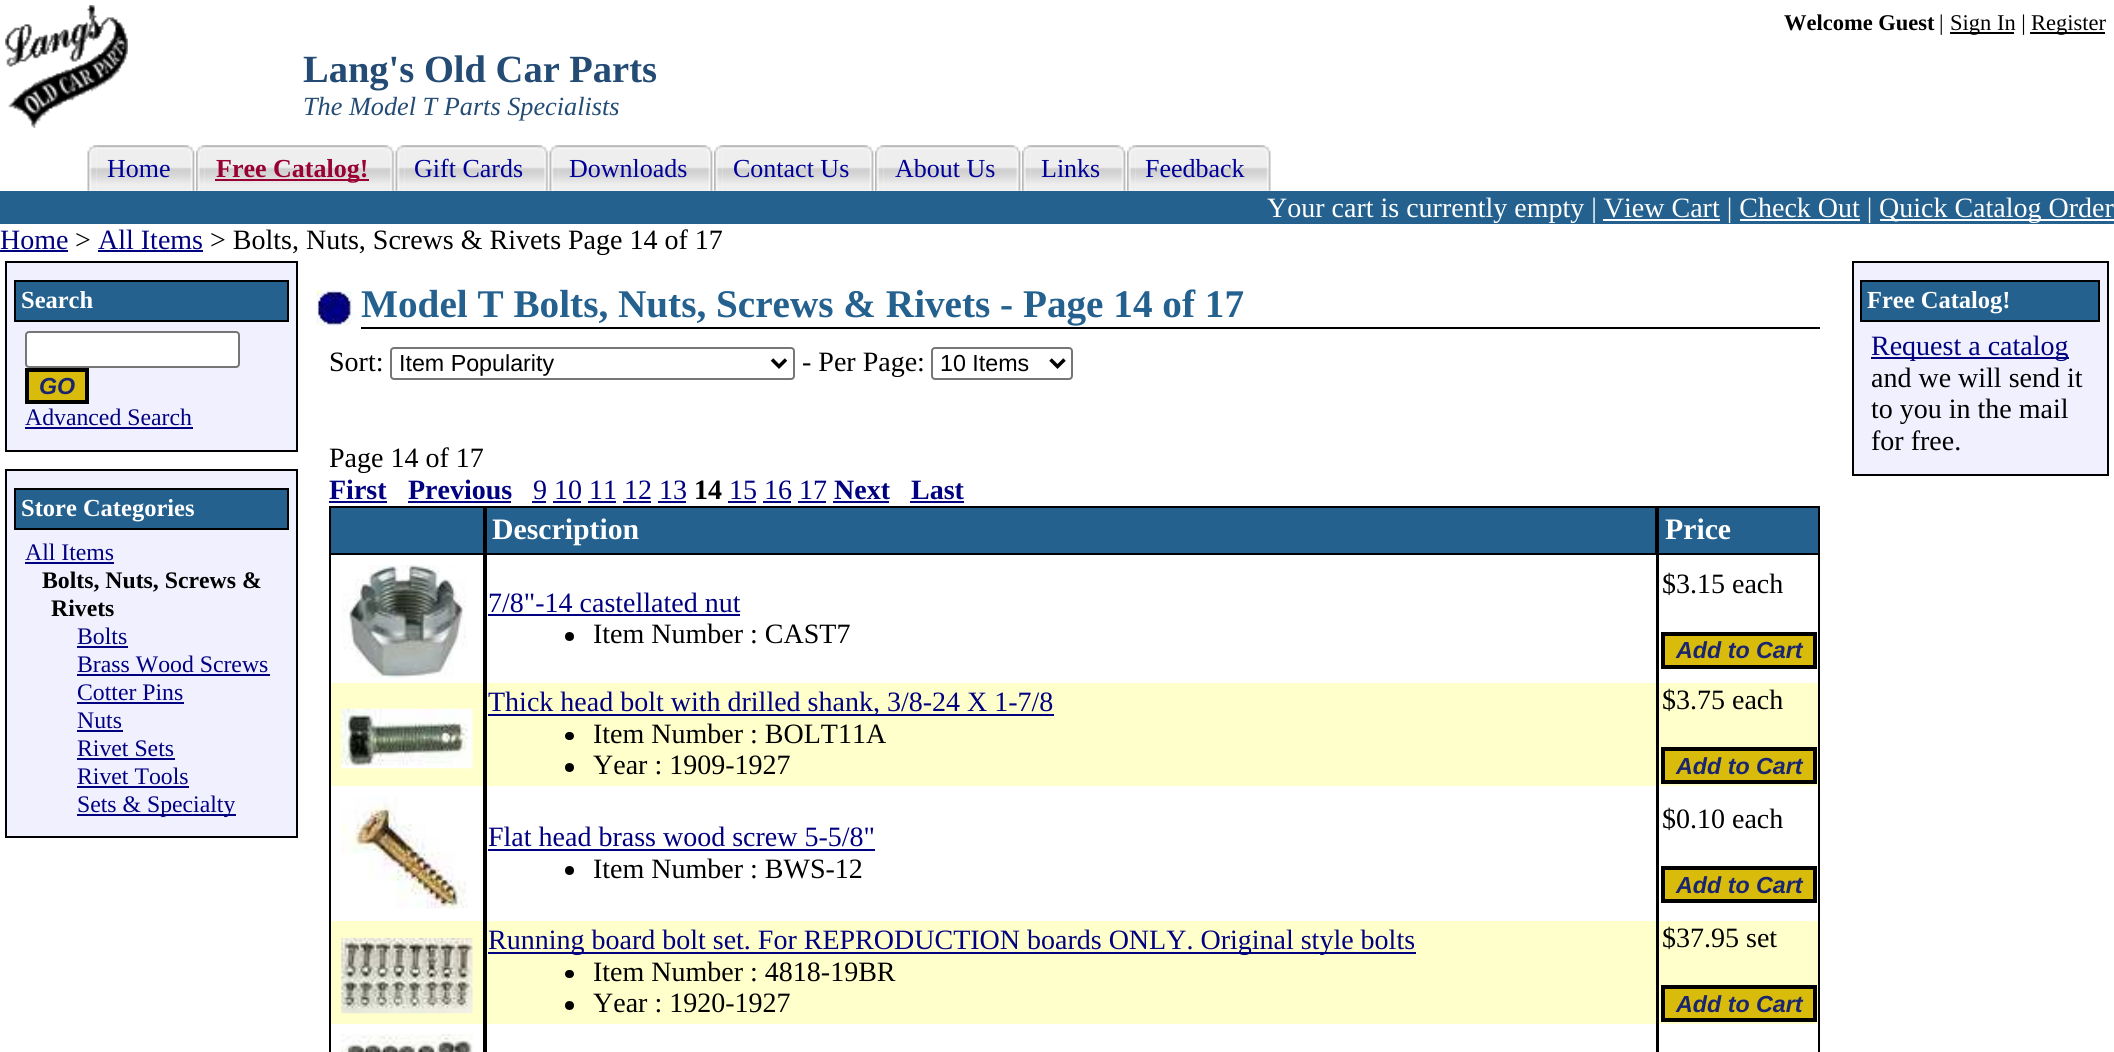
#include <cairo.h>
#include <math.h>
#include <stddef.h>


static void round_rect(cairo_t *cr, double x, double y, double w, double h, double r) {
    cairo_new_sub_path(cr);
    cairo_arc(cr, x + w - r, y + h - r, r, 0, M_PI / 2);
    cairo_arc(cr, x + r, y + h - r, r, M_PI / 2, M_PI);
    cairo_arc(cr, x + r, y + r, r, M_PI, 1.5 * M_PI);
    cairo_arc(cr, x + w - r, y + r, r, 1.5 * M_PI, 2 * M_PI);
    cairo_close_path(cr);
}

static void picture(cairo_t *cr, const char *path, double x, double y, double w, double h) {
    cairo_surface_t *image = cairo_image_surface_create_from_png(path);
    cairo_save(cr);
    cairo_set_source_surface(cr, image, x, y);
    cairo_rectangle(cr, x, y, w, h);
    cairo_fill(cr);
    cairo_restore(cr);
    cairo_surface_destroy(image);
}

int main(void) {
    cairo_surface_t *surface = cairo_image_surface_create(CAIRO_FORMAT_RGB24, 2114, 1052);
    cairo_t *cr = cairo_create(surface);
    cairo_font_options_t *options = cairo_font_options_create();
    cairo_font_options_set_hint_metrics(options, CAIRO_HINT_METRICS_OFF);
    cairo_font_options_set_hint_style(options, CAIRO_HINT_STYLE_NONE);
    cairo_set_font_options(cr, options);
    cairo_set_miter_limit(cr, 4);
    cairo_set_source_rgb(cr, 1, 1, 1);
    cairo_paint(cr);
    picture(cr, "img1.png", 5, 5, 123, 123);
    cairo_select_font_face(cr, "Liberation Serif", CAIRO_FONT_SLANT_NORMAL, CAIRO_FONT_WEIGHT_BOLD);
    cairo_set_font_size(cr, 22.5);
    cairo_set_source_rgb(cr, 0, 0, 0);
    cairo_move_to(cr, 1784, 30);
    cairo_show_text(cr, "Welcome Guest");
    cairo_select_font_face(cr, "Liberation Serif", CAIRO_FONT_SLANT_NORMAL, CAIRO_FONT_WEIGHT_NORMAL);
    cairo_move_to(cr, 1939, 30);
    cairo_show_text(cr, "|");
    cairo_rectangle(cr, 1950, 32, 64, 2);
    cairo_fill(cr);
    cairo_move_to(cr, 1950, 30);
    cairo_show_text(cr, "Sign In |");
    cairo_rectangle(cr, 2030, 32, 75, 2);
    cairo_fill(cr);
    cairo_move_to(cr, 2031, 30);
    cairo_show_text(cr, "Register");
    cairo_select_font_face(cr, "Liberation Serif", CAIRO_FONT_SLANT_NORMAL, CAIRO_FONT_WEIGHT_BOLD);
    cairo_set_font_size(cr, 38.5);
    cairo_set_source_rgb(cr, 0.137, 0.294, 0.455);
    cairo_move_to(cr, 303, 82);
    cairo_show_text(cr, "Lang's Old Car Parts");
    cairo_select_font_face(cr, "Liberation Serif", CAIRO_FONT_SLANT_ITALIC, CAIRO_FONT_WEIGHT_NORMAL);
    cairo_set_font_size(cr, 26.25);
    cairo_move_to(cr, 303, 115);
    cairo_show_text(cr, "The Model T Parts Specialists");
    picture(cr, "img2.png", 87, 145, 10, 46);
    picture(cr, "img3.png", 96, 145, 99, 46);
    cairo_select_font_face(cr, "Liberation Serif", CAIRO_FONT_SLANT_NORMAL, CAIRO_FONT_WEIGHT_NORMAL);
    cairo_set_font_size(cr, 26);
    cairo_set_source_rgb(cr, 0, 0, 0.6);
    cairo_move_to(cr, 107, 177);
    cairo_show_text(cr, "Home");
    picture(cr, "img4.png", 196, 145, 9, 46);
    picture(cr, "img5.png", 204, 145, 191, 46);
    cairo_set_source_rgb(cr, 0.6, 0, 0.2);
    cairo_rectangle(cr, 215, 179, 154, 2);
    cairo_fill(cr);
    cairo_select_font_face(cr, "Liberation Serif", CAIRO_FONT_SLANT_NORMAL, CAIRO_FONT_WEIGHT_BOLD);
    cairo_move_to(cr, 216, 177);
    cairo_show_text(cr, "Free Catalog!");
    picture(cr, "img2.png", 395, 145, 10, 46);
    picture(cr, "img6.png", 404, 145, 145, 46);
    cairo_select_font_face(cr, "Liberation Serif", CAIRO_FONT_SLANT_NORMAL, CAIRO_FONT_WEIGHT_NORMAL);
    cairo_set_source_rgb(cr, 0, 0, 0.6);
    cairo_move_to(cr, 414, 177);
    cairo_show_text(cr, "Gift Cards");
    picture(cr, "img2.png", 549, 145, 10, 46);
    picture(cr, "img7.png", 558, 145, 155, 46);
    cairo_move_to(cr, 569, 177);
    cairo_show_text(cr, "Downloads");
    picture(cr, "img4.png", 714, 145, 9, 46);
    picture(cr, "img8.png", 722, 145, 152, 46);
    cairo_move_to(cr, 733, 177);
    cairo_show_text(cr, "Contact Us");
    picture(cr, "img4.png", 875, 145, 9, 46);
    picture(cr, "img9.png", 883, 145, 138, 46);
    cairo_move_to(cr, 895, 177);
    cairo_show_text(cr, "About Us");
    picture(cr, "img4.png", 1022, 145, 9, 46);
    picture(cr, "img10.png", 1030, 145, 96, 46);
    cairo_move_to(cr, 1041, 177);
    cairo_show_text(cr, "Links");
    picture(cr, "img4.png", 1127, 145, 9, 46);
    picture(cr, "img11.png", 1135, 145, 136, 46);
    cairo_move_to(cr, 1145, 177);
    cairo_show_text(cr, "Feedback");
    cairo_set_source_rgb(cr, 0.141, 0.38, 0.557);
    cairo_rectangle(cr, 0, 191, 2114, 33);
    cairo_fill(cr);
    cairo_set_font_size(cr, 28);
    cairo_set_source_rgb(cr, 1, 1, 1);
    cairo_move_to(cr, 1267, 217);
    cairo_show_text(cr, "Your cart is currently empty | View Cart | Check Out |");
    cairo_rectangle(cr, 1880, 219, 234, 2);
    cairo_fill(cr);
    cairo_move_to(cr, 1879, 217);
    cairo_show_text(cr, "Quick Catalog Order");
    cairo_rectangle(cr, 1603, 219, 117, 2);
    cairo_fill(cr);
    cairo_rectangle(cr, 1740, 219, 120, 2);
    cairo_fill(cr);
    cairo_set_source_rgb(cr, 0, 0, 0.502);
    cairo_move_to(cr, 0, 249);
    cairo_show_text(cr, "Home");
    cairo_rectangle(cr, 0, 250, 68, 2);
    cairo_fill(cr);
    cairo_set_source_rgb(cr, 0, 0, 0);
    cairo_move_to(cr, 75, 249);
    cairo_show_text(cr, ">");
    cairo_set_source_rgb(cr, 0, 0, 0.502);
    cairo_move_to(cr, 98, 249);
    cairo_show_text(cr, "All Items");
    cairo_rectangle(cr, 98, 250, 105, 2);
    cairo_fill(cr);
    cairo_set_source_rgb(cr, 0, 0, 0);
    cairo_move_to(cr, 210, 249);
    cairo_show_text(cr, "> Bolts, Nuts, Screws & Rivets Page 14 of 17");
    cairo_set_source_rgb(cr, 0.941, 0.941, 1);
    cairo_rectangle(cr, 6, 262, 291, 189);
    cairo_fill_preserve(cr);
    cairo_set_source_rgb(cr, 0, 0, 0);
    cairo_stroke(cr);
    cairo_set_source_rgb(cr, 0.141, 0.38, 0.557);
    cairo_rectangle(cr, 15, 281, 273, 40);
    cairo_fill_preserve(cr);
    cairo_set_source_rgb(cr, 0, 0, 0);
    cairo_stroke(cr);
    cairo_select_font_face(cr, "Liberation Serif", CAIRO_FONT_SLANT_NORMAL, CAIRO_FONT_WEIGHT_BOLD);
    cairo_set_font_size(cr, 24.5);
    cairo_set_source_rgb(cr, 1, 1, 1);
    cairo_move_to(cr, 21, 308);
    cairo_show_text(cr, "Search");
    round_rect(cr, 26, 332, 213, 35, 3);
    cairo_fill_preserve(cr);
    cairo_set_source_rgb(cr, 0.463, 0.463, 0.463);
    cairo_stroke(cr);
    cairo_set_source_rgb(cr, 0.851, 0.733, 0.047);
    cairo_rectangle(cr, 27, 370, 60, 32);
    cairo_fill_preserve(cr);
    cairo_set_source_rgb(cr, 0, 0, 0);
    cairo_set_line_width(cr, 4);
    cairo_stroke(cr);
    cairo_select_font_face(cr, "Liberation Sans", CAIRO_FONT_SLANT_ITALIC, CAIRO_FONT_WEIGHT_BOLD);
    cairo_set_font_size(cr, 23.25);
    cairo_set_source_rgb(cr, 0.102, 0.145, 0.435);
    cairo_move_to(cr, 39, 394);
    cairo_show_text(cr, "GO");
    cairo_select_font_face(cr, "Liberation Serif", CAIRO_FONT_SLANT_NORMAL, CAIRO_FONT_WEIGHT_NORMAL);
    cairo_set_font_size(cr, 23.75);
    cairo_set_source_rgb(cr, 0, 0, 0.502);
    cairo_move_to(cr, 25, 425);
    cairo_show_text(cr, "Advanced Search");
    cairo_rectangle(cr, 25, 427, 168, 2);
    cairo_fill(cr);
    cairo_set_source_rgb(cr, 0.941, 0.941, 1);
    cairo_rectangle(cr, 6, 470, 291, 367);
    cairo_fill_preserve(cr);
    cairo_set_source_rgb(cr, 0, 0, 0);
    cairo_set_line_width(cr, 2);
    cairo_stroke(cr);
    cairo_set_source_rgb(cr, 0.141, 0.38, 0.557);
    cairo_rectangle(cr, 15, 489, 273, 40);
    cairo_fill_preserve(cr);
    cairo_set_source_rgb(cr, 0, 0, 0);
    cairo_stroke(cr);
    cairo_select_font_face(cr, "Liberation Serif", CAIRO_FONT_SLANT_NORMAL, CAIRO_FONT_WEIGHT_BOLD);
    cairo_set_font_size(cr, 24.5);
    cairo_set_source_rgb(cr, 1, 1, 1);
    cairo_move_to(cr, 21, 516);
    cairo_show_text(cr, "Store Categories");
    cairo_select_font_face(cr, "Liberation Serif", CAIRO_FONT_SLANT_NORMAL, CAIRO_FONT_WEIGHT_NORMAL);
    cairo_set_font_size(cr, 23.75);
    cairo_set_source_rgb(cr, 0, 0, 0.502);
    cairo_move_to(cr, 25, 560);
    cairo_show_text(cr, "All Items");
    cairo_rectangle(cr, 25, 562, 89, 2);
    cairo_fill(cr);
    cairo_select_font_face(cr, "Liberation Serif", CAIRO_FONT_SLANT_NORMAL, CAIRO_FONT_WEIGHT_BOLD);
    cairo_set_source_rgb(cr, 0, 0, 0);
    cairo_move_to(cr, 42, 588);
    cairo_show_text(cr, "Bolts, Nuts, Screws &");
    cairo_move_to(cr, 51, 616);
    cairo_show_text(cr, "Rivets");
    cairo_select_font_face(cr, "Liberation Serif", CAIRO_FONT_SLANT_NORMAL, CAIRO_FONT_WEIGHT_NORMAL);
    cairo_set_source_rgb(cr, 0, 0, 0.502);
    cairo_move_to(cr, 77, 644);
    cairo_show_text(cr, "Bolts");
    cairo_rectangle(cr, 77, 646, 51, 2);
    cairo_fill(cr);
    cairo_move_to(cr, 77, 672);
    cairo_show_text(cr, "Brass Wood Screws");
    cairo_rectangle(cr, 77, 674, 193, 2);
    cairo_fill(cr);
    cairo_move_to(cr, 77, 700);
    cairo_show_text(cr, "Cotter Pins");
    cairo_rectangle(cr, 77, 702, 107, 2);
    cairo_fill(cr);
    cairo_move_to(cr, 77, 728);
    cairo_show_text(cr, "Nuts");
    cairo_rectangle(cr, 77, 730, 46, 2);
    cairo_fill(cr);
    cairo_move_to(cr, 77, 756);
    cairo_show_text(cr, "Rivet Sets");
    cairo_rectangle(cr, 77, 758, 98, 2);
    cairo_fill(cr);
    cairo_move_to(cr, 77, 784);
    cairo_show_text(cr, "Rivet Tools");
    cairo_rectangle(cr, 77, 786, 112, 2);
    cairo_fill(cr);
    cairo_rectangle(cr, 77, 814, 159, 2);
    cairo_fill(cr);
    cairo_move_to(cr, 77, 812);
    cairo_show_text(cr, "Sets & Specialty");
    picture(cr, "img12.png", 316, 290, 36, 36);
    cairo_set_source_rgb(cr, 0, 0, 0);
    cairo_rectangle(cr, 361, 327, 1459, 2);
    cairo_fill(cr);
    cairo_select_font_face(cr, "Liberation Serif", CAIRO_FONT_SLANT_NORMAL, CAIRO_FONT_WEIGHT_BOLD);
    cairo_set_font_size(cr, 39.2);
    cairo_set_source_rgb(cr, 0.141, 0.38, 0.557);
    cairo_move_to(cr, 361, 317);
    cairo_show_text(cr, "Model T Bolts, Nuts, Screws & Rivets - Page 14 of 17");
    cairo_select_font_face(cr, "Liberation Serif", CAIRO_FONT_SLANT_NORMAL, CAIRO_FONT_WEIGHT_NORMAL);
    cairo_set_font_size(cr, 28);
    cairo_set_source_rgb(cr, 0, 0, 0);
    cairo_move_to(cr, 329, 371);
    cairo_show_text(cr, "Sort:");
    round_rect(cr, 391, 348, 403, 31, 3);
    cairo_set_source_rgb(cr, 0.463, 0.463, 0.463);
    cairo_stroke(cr);
    cairo_new_path(cr);
    cairo_move_to(cr, 772, 359.5);
    cairo_line_to(cr, 779, 366.5);
    cairo_line_to(cr, 786, 359.5);
    cairo_set_source_rgb(cr, 0, 0, 0);
    cairo_set_line_width(cr, 3.5);
    cairo_stroke(cr);
    cairo_select_font_face(cr, "Liberation Sans", CAIRO_FONT_SLANT_NORMAL, CAIRO_FONT_WEIGHT_NORMAL);
    cairo_set_font_size(cr, 23.25);
    cairo_move_to(cr, 399, 371);
    cairo_show_text(cr, "Item Popularity");
    cairo_select_font_face(cr, "Liberation Serif", CAIRO_FONT_SLANT_NORMAL, CAIRO_FONT_WEIGHT_NORMAL);
    cairo_set_font_size(cr, 28);
    cairo_move_to(cr, 802, 371);
    cairo_show_text(cr, "- Per Page:");
    round_rect(cr, 932, 348, 140, 31, 3);
    cairo_set_source_rgb(cr, 0.463, 0.463, 0.463);
    cairo_set_line_width(cr, 2);
    cairo_stroke(cr);
    cairo_new_path(cr);
    cairo_move_to(cr, 1050.5, 359.5);
    cairo_line_to(cr, 1057.5, 366.5);
    cairo_line_to(cr, 1064.5, 359.5);
    cairo_set_source_rgb(cr, 0, 0, 0);
    cairo_set_line_width(cr, 3.5);
    cairo_stroke(cr);
    cairo_select_font_face(cr, "Liberation Sans", CAIRO_FONT_SLANT_NORMAL, CAIRO_FONT_WEIGHT_NORMAL);
    cairo_set_font_size(cr, 23.25);
    cairo_move_to(cr, 940, 371);
    cairo_show_text(cr, "10 Items");
    cairo_select_font_face(cr, "Liberation Serif", CAIRO_FONT_SLANT_NORMAL, CAIRO_FONT_WEIGHT_NORMAL);
    cairo_set_font_size(cr, 28);
    cairo_move_to(cr, 329, 467);
    cairo_show_text(cr, "Page 14 of 17");
    cairo_select_font_face(cr, "Liberation Serif", CAIRO_FONT_SLANT_NORMAL, CAIRO_FONT_WEIGHT_BOLD);
    cairo_set_source_rgb(cr, 0, 0, 0.502);
    cairo_move_to(cr, 329, 499);
    cairo_show_text(cr, "First");
    cairo_rectangle(cr, 329, 501, 58, 2);
    cairo_fill(cr);
    cairo_move_to(cr, 408, 499);
    cairo_show_text(cr, "Previous");
    cairo_rectangle(cr, 408, 501, 103, 2);
    cairo_fill(cr);
    cairo_select_font_face(cr, "Liberation Serif", CAIRO_FONT_SLANT_NORMAL, CAIRO_FONT_WEIGHT_NORMAL);
    cairo_move_to(cr, 533, 499);
    cairo_show_text(cr, "9 10 11 12 13");
    cairo_rectangle(cr, 532, 501, 14, 2);
    cairo_fill(cr);
    cairo_rectangle(cr, 553, 501, 28, 2);
    cairo_fill(cr);
    cairo_rectangle(cr, 588, 501, 28, 2);
    cairo_fill(cr);
    cairo_rectangle(cr, 623, 501, 28, 2);
    cairo_fill(cr);
    cairo_rectangle(cr, 658, 501, 28, 2);
    cairo_fill(cr);
    cairo_select_font_face(cr, "Liberation Serif", CAIRO_FONT_SLANT_NORMAL, CAIRO_FONT_WEIGHT_BOLD);
    cairo_set_source_rgb(cr, 0, 0, 0);
    cairo_move_to(cr, 694, 499);
    cairo_show_text(cr, "14");
    cairo_select_font_face(cr, "Liberation Serif", CAIRO_FONT_SLANT_NORMAL, CAIRO_FONT_WEIGHT_NORMAL);
    cairo_set_source_rgb(cr, 0, 0, 0.502);
    cairo_move_to(cr, 729, 499);
    cairo_show_text(cr, "15 16 17");
    cairo_rectangle(cr, 728, 501, 28, 2);
    cairo_fill(cr);
    cairo_rectangle(cr, 763, 501, 28, 2);
    cairo_fill(cr);
    cairo_rectangle(cr, 798, 501, 28, 2);
    cairo_fill(cr);
    cairo_select_font_face(cr, "Liberation Serif", CAIRO_FONT_SLANT_NORMAL, CAIRO_FONT_WEIGHT_BOLD);
    cairo_move_to(cr, 834, 499);
    cairo_show_text(cr, "Next");
    cairo_rectangle(cr, 833, 501, 56, 2);
    cairo_fill(cr);
    cairo_move_to(cr, 911, 499);
    cairo_show_text(cr, "Last");
    cairo_rectangle(cr, 910, 501, 54, 2);
    cairo_fill(cr);
    cairo_set_source_rgb(cr, 0.141, 0.38, 0.557);
    cairo_rectangle(cr, 330, 507, 154, 47);
    cairo_fill_preserve(cr);
    cairo_set_source_rgb(cr, 0, 0, 0);
    cairo_set_line_width(cr, 2);
    cairo_stroke(cr);
    cairo_set_source_rgb(cr, 0.141, 0.38, 0.557);
    cairo_rectangle(cr, 486, 507, 1170, 47);
    cairo_fill_preserve(cr);
    cairo_set_source_rgb(cr, 0, 0, 0);
    cairo_stroke(cr);
    cairo_set_font_size(cr, 29.75);
    cairo_set_source_rgb(cr, 1, 1, 1);
    cairo_move_to(cr, 492, 539);
    cairo_show_text(cr, "Description");
    cairo_set_source_rgb(cr, 0.141, 0.38, 0.557);
    cairo_rectangle(cr, 1658, 507, 161, 47);
    cairo_fill_preserve(cr);
    cairo_set_source_rgb(cr, 0, 0, 0);
    cairo_stroke(cr);
    cairo_set_source_rgb(cr, 1, 1, 1);
    cairo_move_to(cr, 1665, 539);
    cairo_show_text(cr, "Price");
    cairo_set_source_rgb(cr, 0, 0, 0);
    cairo_rectangle(cr, 483, 555, 4, 128);
    cairo_fill(cr);
    cairo_rectangle(cr, 329, 555, 2, 497);
    cairo_fill(cr);
    picture(cr, "img13.png", 341, 565, 126, 113);
    cairo_rectangle(cr, 1656, 555, 3, 128);
    cairo_fill(cr);
    cairo_select_font_face(cr, "Liberation Serif", CAIRO_FONT_SLANT_NORMAL, CAIRO_FONT_WEIGHT_NORMAL);
    cairo_set_font_size(cr, 28);
    cairo_set_source_rgb(cr, 0, 0, 0.502);
    cairo_move_to(cr, 488, 612);
    cairo_show_text(cr, "7/8\"-14 castellated nut");
    cairo_rectangle(cr, 488, 614, 252, 2);
    cairo_fill(cr);
    cairo_set_source_rgb(cr, 0, 0, 0);
    cairo_arc(cr, 569.5, 636.5, 4.5, 0, 2 * M_PI);
    cairo_fill(cr);
    cairo_move_to(cr, 593, 643);
    cairo_show_text(cr, "Item Number : CAST7");
    cairo_rectangle(cr, 1818, 555, 2, 497);
    cairo_fill(cr);
    cairo_move_to(cr, 1662, 593);
    cairo_show_text(cr, "$3.15 each");
    cairo_set_source_rgb(cr, 0.851, 0.733, 0.047);
    cairo_rectangle(cr, 1663, 634, 152, 33);
    cairo_fill_preserve(cr);
    cairo_set_source_rgb(cr, 0, 0, 0);
    cairo_set_line_width(cr, 4);
    cairo_stroke(cr);
    cairo_select_font_face(cr, "Liberation Sans", CAIRO_FONT_SLANT_ITALIC, CAIRO_FONT_WEIGHT_BOLD);
    cairo_set_font_size(cr, 23.25);
    cairo_set_source_rgb(cr, 0.102, 0.145, 0.435);
    cairo_move_to(cr, 1676, 658);
    cairo_show_text(cr, "Add to Cart");
    cairo_set_source_rgb(cr, 1, 1, 0.8);
    cairo_rectangle(cr, 331, 683, 1487, 103);
    cairo_fill(cr);
    cairo_set_source_rgb(cr, 0, 0, 0);
    cairo_rectangle(cr, 483, 683, 4, 103);
    cairo_fill(cr);
    picture(cr, "img14.png", 341, 708, 132, 61);
    cairo_rectangle(cr, 1656, 683, 3, 103);
    cairo_fill(cr);
    cairo_set_source_rgb(cr, 0, 0, 0.502);
    cairo_rectangle(cr, 488, 714, 566, 2);
    cairo_fill(cr);
    cairo_select_font_face(cr, "Liberation Serif", CAIRO_FONT_SLANT_NORMAL, CAIRO_FONT_WEIGHT_NORMAL);
    cairo_set_font_size(cr, 28);
    cairo_move_to(cr, 488, 711);
    cairo_show_text(cr, "Thick head bolt with drilled shank, 3/8-24 X 1-7/8");
    cairo_set_source_rgb(cr, 0, 0, 0);
    round_rect(cr, 565, 732, 9, 8, 4);
    cairo_fill(cr);
    cairo_move_to(cr, 593, 743);
    cairo_show_text(cr, "Item Number : BOLT11A");
    cairo_new_path(cr);
    cairo_arc(cr, 569.5, 767.5, 4.5, 0, 2 * M_PI);
    cairo_fill(cr);
    cairo_move_to(cr, 593, 774);
    cairo_show_text(cr, "Year : 1909-1927");
    cairo_move_to(cr, 1662, 709);
    cairo_show_text(cr, "$3.75 each");
    cairo_set_source_rgb(cr, 0.851, 0.733, 0.047);
    cairo_rectangle(cr, 1663, 749, 152, 33);
    cairo_fill_preserve(cr);
    cairo_set_source_rgb(cr, 0, 0, 0);
    cairo_stroke(cr);
    cairo_select_font_face(cr, "Liberation Sans", CAIRO_FONT_SLANT_ITALIC, CAIRO_FONT_WEIGHT_BOLD);
    cairo_set_font_size(cr, 23.25);
    cairo_set_source_rgb(cr, 0.102, 0.145, 0.435);
    cairo_move_to(cr, 1676, 774);
    cairo_show_text(cr, "Add to Cart");
    cairo_set_source_rgb(cr, 0, 0, 0);
    cairo_rectangle(cr, 483, 786, 4, 135);
    cairo_fill(cr);
    picture(cr, "img15.png", 341, 796, 127, 113);
    cairo_rectangle(cr, 1656, 786, 3, 135);
    cairo_fill(cr);
    cairo_select_font_face(cr, "Liberation Serif", CAIRO_FONT_SLANT_NORMAL, CAIRO_FONT_WEIGHT_NORMAL);
    cairo_set_font_size(cr, 28);
    cairo_set_source_rgb(cr, 0, 0, 0.502);
    cairo_move_to(cr, 488, 846);
    cairo_show_text(cr, "Flat head brass wood screw 5-5/8\"");
    cairo_rectangle(cr, 488, 849, 387, 2);
    cairo_fill(cr);
    cairo_set_source_rgb(cr, 0, 0, 0);
    cairo_arc(cr, 569.5, 870.5, 4.5, 0, 2 * M_PI);
    cairo_fill(cr);
    cairo_move_to(cr, 593, 878);
    cairo_show_text(cr, "Item Number : BWS-12");
    cairo_move_to(cr, 1662, 828);
    cairo_show_text(cr, "$0.10 each");
    cairo_set_source_rgb(cr, 0.851, 0.733, 0.047);
    cairo_rectangle(cr, 1663, 868, 152, 33);
    cairo_fill_preserve(cr);
    cairo_set_source_rgb(cr, 0, 0, 0);
    cairo_stroke(cr);
    cairo_select_font_face(cr, "Liberation Sans", CAIRO_FONT_SLANT_ITALIC, CAIRO_FONT_WEIGHT_BOLD);
    cairo_set_font_size(cr, 23.25);
    cairo_set_source_rgb(cr, 0.102, 0.145, 0.435);
    cairo_move_to(cr, 1676, 893);
    cairo_show_text(cr, "Add to Cart");
    cairo_set_source_rgb(cr, 1, 1, 0.8);
    cairo_rectangle(cr, 331, 921, 1487, 103);
    cairo_fill(cr);
    cairo_set_source_rgb(cr, 0, 0, 0);
    cairo_rectangle(cr, 483, 921, 4, 103);
    cairo_fill(cr);
    picture(cr, "img16.png", 341, 938, 132, 76);
    cairo_rectangle(cr, 1656, 921, 3, 103);
    cairo_fill(cr);
    cairo_set_source_rgb(cr, 0, 0, 0.502);
    cairo_rectangle(cr, 488, 952, 928, 2);
    cairo_fill(cr);
    cairo_select_font_face(cr, "Liberation Serif", CAIRO_FONT_SLANT_NORMAL, CAIRO_FONT_WEIGHT_NORMAL);
    cairo_set_font_size(cr, 28);
    cairo_move_to(cr, 488, 949);
    cairo_show_text(cr, "Running board bolt set. For REPRODUCTION boards ONLY. Original style bolts");
    cairo_set_source_rgb(cr, 0, 0, 0);
    round_rect(cr, 565, 970, 9, 8, 4);
    cairo_fill(cr);
    cairo_move_to(cr, 593, 981);
    cairo_show_text(cr, "Item Number : 4818-19BR");
    cairo_new_path(cr);
    cairo_arc(cr, 569.5, 1005.5, 4.5, 0, 2 * M_PI);
    cairo_fill(cr);
    cairo_move_to(cr, 593, 1012);
    cairo_show_text(cr, "Year : 1920-1927");
    cairo_move_to(cr, 1662, 947);
    cairo_show_text(cr, "$37.95 set");
    cairo_set_source_rgb(cr, 0.851, 0.733, 0.047);
    cairo_rectangle(cr, 1663, 987, 152, 33);
    cairo_fill_preserve(cr);
    cairo_set_source_rgb(cr, 0, 0, 0);
    cairo_stroke(cr);
    cairo_select_font_face(cr, "Liberation Sans", CAIRO_FONT_SLANT_ITALIC, CAIRO_FONT_WEIGHT_BOLD);
    cairo_set_font_size(cr, 23.25);
    cairo_set_source_rgb(cr, 0.102, 0.145, 0.435);
    cairo_move_to(cr, 1676, 1012);
    cairo_show_text(cr, "Add to Cart");
    cairo_set_source_rgb(cr, 0, 0, 0);
    cairo_rectangle(cr, 483, 1024, 4, 28);
    cairo_fill(cr);
    picture(cr, "img17.png", 341, 1034, 132, 18);
    cairo_rectangle(cr, 1656, 1024, 3, 28);
    cairo_fill(cr);
    cairo_set_source_rgb(cr, 0.941, 0.941, 1);
    cairo_rectangle(cr, 1853, 262, 255, 213);
    cairo_fill_preserve(cr);
    cairo_set_source_rgb(cr, 0, 0, 0);
    cairo_set_line_width(cr, 2);
    cairo_stroke(cr);
    cairo_set_source_rgb(cr, 0.141, 0.38, 0.557);
    cairo_rectangle(cr, 1861, 281, 238, 40);
    cairo_fill_preserve(cr);
    cairo_set_source_rgb(cr, 0, 0, 0);
    cairo_stroke(cr);
    cairo_select_font_face(cr, "Liberation Serif", CAIRO_FONT_SLANT_NORMAL, CAIRO_FONT_WEIGHT_BOLD);
    cairo_set_font_size(cr, 24.5);
    cairo_set_source_rgb(cr, 1, 1, 1);
    cairo_move_to(cr, 1867, 308);
    cairo_show_text(cr, "Free Catalog!");
    cairo_set_source_rgb(cr, 0, 0, 0.502);
    cairo_rectangle(cr, 1871, 357, 198, 2);
    cairo_fill(cr);
    cairo_select_font_face(cr, "Liberation Serif", CAIRO_FONT_SLANT_NORMAL, CAIRO_FONT_WEIGHT_NORMAL);
    cairo_set_font_size(cr, 28);
    cairo_move_to(cr, 1871, 355);
    cairo_show_text(cr, "Request a catalog");
    cairo_set_source_rgb(cr, 0, 0, 0);
    cairo_move_to(cr, 1871, 387);
    cairo_show_text(cr, "and we will send it");
    cairo_move_to(cr, 1871, 418);
    cairo_show_text(cr, "to you in the mail");
    cairo_move_to(cr, 1871, 450);
    cairo_show_text(cr, "for free.");
    cairo_surface_write_to_png(surface, "page.png");
    cairo_font_options_destroy(options);
    cairo_destroy(cr);
    cairo_surface_destroy(surface);
    return 0;
}
